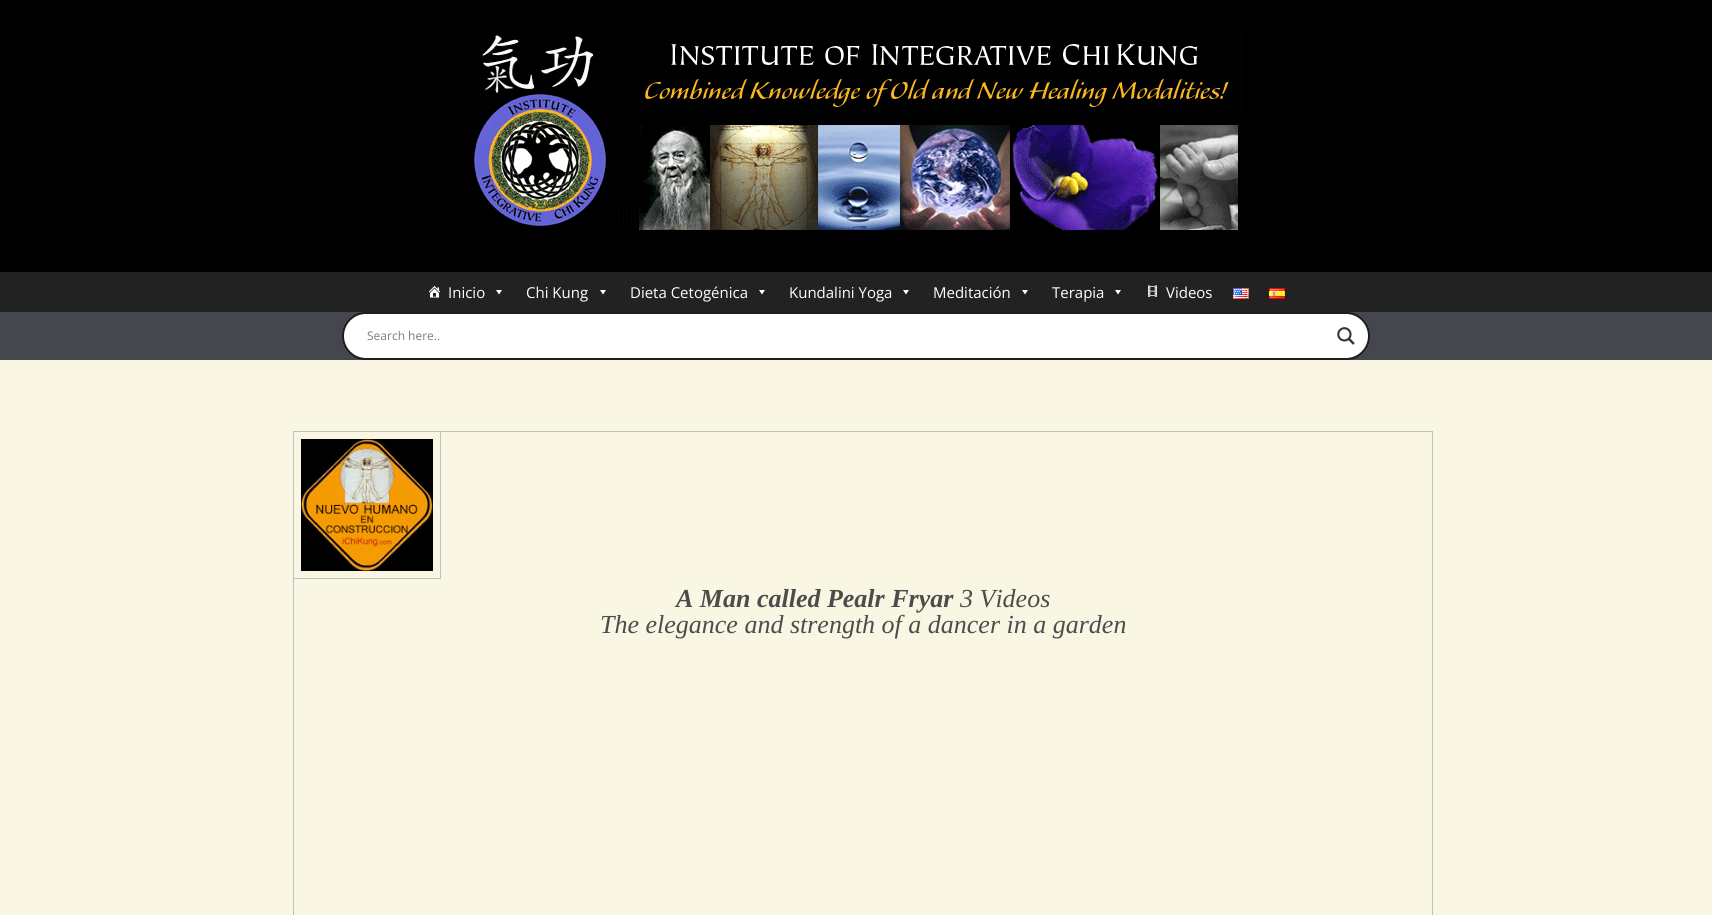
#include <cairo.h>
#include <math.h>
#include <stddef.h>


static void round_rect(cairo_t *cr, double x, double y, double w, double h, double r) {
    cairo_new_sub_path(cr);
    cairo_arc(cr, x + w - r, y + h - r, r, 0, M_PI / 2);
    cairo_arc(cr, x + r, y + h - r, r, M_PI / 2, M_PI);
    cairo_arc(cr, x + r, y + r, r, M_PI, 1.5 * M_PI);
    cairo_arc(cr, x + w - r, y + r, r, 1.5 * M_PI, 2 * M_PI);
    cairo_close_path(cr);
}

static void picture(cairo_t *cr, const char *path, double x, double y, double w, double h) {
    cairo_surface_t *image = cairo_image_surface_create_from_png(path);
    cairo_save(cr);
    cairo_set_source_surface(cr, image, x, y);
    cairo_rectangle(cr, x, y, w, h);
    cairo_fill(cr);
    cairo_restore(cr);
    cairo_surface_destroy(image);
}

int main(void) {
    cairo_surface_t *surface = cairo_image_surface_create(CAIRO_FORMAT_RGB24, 1712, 915);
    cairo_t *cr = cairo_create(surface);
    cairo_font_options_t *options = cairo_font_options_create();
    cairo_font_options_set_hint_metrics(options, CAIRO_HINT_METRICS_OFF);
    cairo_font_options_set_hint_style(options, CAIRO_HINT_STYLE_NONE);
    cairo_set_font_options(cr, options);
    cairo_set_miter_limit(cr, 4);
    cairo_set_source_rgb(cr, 0.267, 0.278, 0.298);
    cairo_paint(cr);
    cairo_set_source_rgb(cr, 0, 0, 0);
    cairo_rectangle(cr, 0, 0, 1712, 272);
    cairo_fill(cr);
    picture(cr, "img1.png", 474, 33, 768, 198);
    cairo_set_source_rgb(cr, 0.133, 0.133, 0.133);
    cairo_rectangle(cr, 0, 272, 1712, 40);
    cairo_fill(cr);
    picture(cr, "img2.png", 428, 286, 13, 12);
    cairo_select_font_face(cr, "Open Sans", CAIRO_FONT_SLANT_NORMAL, CAIRO_FONT_WEIGHT_NORMAL);
    cairo_set_font_size(cr, 15);
    cairo_set_source_rgb(cr, 1, 1, 1);
    cairo_move_to(cr, 448, 298);
    cairo_show_text(cr, "Inicio");
    cairo_new_path(cr);
    cairo_move_to(cr, 502, 290);
    cairo_line_to(cr, 499, 294.5);
    cairo_line_to(cr, 496, 290);
    cairo_close_path(cr);
    cairo_fill(cr);
    cairo_move_to(cr, 526, 298);
    cairo_show_text(cr, "Chi Kung");
    cairo_new_path(cr);
    cairo_move_to(cr, 606, 290);
    cairo_line_to(cr, 603, 294.5);
    cairo_line_to(cr, 600, 290);
    cairo_close_path(cr);
    cairo_fill(cr);
    cairo_move_to(cr, 630, 298);
    cairo_show_text(cr, "Dieta Cetogénica");
    cairo_new_path(cr);
    cairo_move_to(cr, 765, 290);
    cairo_line_to(cr, 762, 294.5);
    cairo_line_to(cr, 759, 290);
    cairo_close_path(cr);
    cairo_fill(cr);
    cairo_move_to(cr, 789, 298);
    cairo_show_text(cr, "Kundalini Yoga");
    cairo_new_path(cr);
    cairo_move_to(cr, 909, 290);
    cairo_line_to(cr, 906, 294.5);
    cairo_line_to(cr, 903, 290);
    cairo_close_path(cr);
    cairo_fill(cr);
    cairo_move_to(cr, 933, 298);
    cairo_show_text(cr, "Meditación");
    cairo_new_path(cr);
    cairo_move_to(cr, 1028, 290);
    cairo_line_to(cr, 1025, 294.5);
    cairo_line_to(cr, 1022, 290);
    cairo_close_path(cr);
    cairo_fill(cr);
    cairo_move_to(cr, 1052, 298);
    cairo_show_text(cr, "Terapia");
    cairo_new_path(cr);
    cairo_move_to(cr, 1121, 290);
    cairo_line_to(cr, 1118, 294.5);
    cairo_line_to(cr, 1115, 290);
    cairo_close_path(cr);
    cairo_fill(cr);
    picture(cr, "img3.png", 1148, 285, 9, 12);
    cairo_move_to(cr, 1166, 298);
    cairo_show_text(cr, "Videos");
    picture(cr, "img4.png", 1233, 288, 16, 11);
    picture(cr, "img5.png", 1269, 288, 16, 11);
    round_rect(cr, 343, 313, 1026, 46, 23);
    cairo_fill_preserve(cr);
    cairo_set_source_rgb(cr, 0.118, 0.118, 0.118);
    cairo_stroke(cr);
    cairo_set_font_size(cr, 12);
    cairo_set_source_rgb(cr, 0.49, 0.49, 0.49);
    cairo_move_to(cr, 367, 340);
    cairo_show_text(cr, "Search here..");
    picture(cr, "img6.png", 1337, 327, 18, 18);
    cairo_set_source_rgb(cr, 0.976, 0.965, 0.89);
    cairo_rectangle(cr, 0, 360, 1712, 555);
    cairo_fill(cr);
    cairo_rectangle(cr, 293.5, 431.5, 1139, 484);
    cairo_set_source_rgb(cr, 0.753, 0.753, 0.753);
    cairo_set_line_width(cr, 1);
    cairo_stroke(cr);
    cairo_rectangle(cr, 293.5, 431.5, 147, 147);
    cairo_stroke(cr);
    picture(cr, "img7.png", 301, 439, 132, 132);
    cairo_select_font_face(cr, "Liberation Serif", CAIRO_FONT_SLANT_ITALIC, CAIRO_FONT_WEIGHT_BOLD);
    cairo_set_font_size(cr, 26);
    cairo_set_source_rgb(cr, 0.298, 0.298, 0.298);
    cairo_move_to(cr, 676, 607);
    cairo_show_text(cr, "A Man called Pealr Fryar");
    cairo_select_font_face(cr, "Liberation Serif", CAIRO_FONT_SLANT_ITALIC, CAIRO_FONT_WEIGHT_NORMAL);
    cairo_move_to(cr, 960, 607);
    cairo_show_text(cr, "3 Videos");
    cairo_move_to(cr, 600, 633);
    cairo_show_text(cr, "The elegance and strength of a dancer in a garden");
    cairo_surface_write_to_png(surface, "page.png");
    cairo_font_options_destroy(options);
    cairo_destroy(cr);
    cairo_surface_destroy(surface);
    return 0;
}
